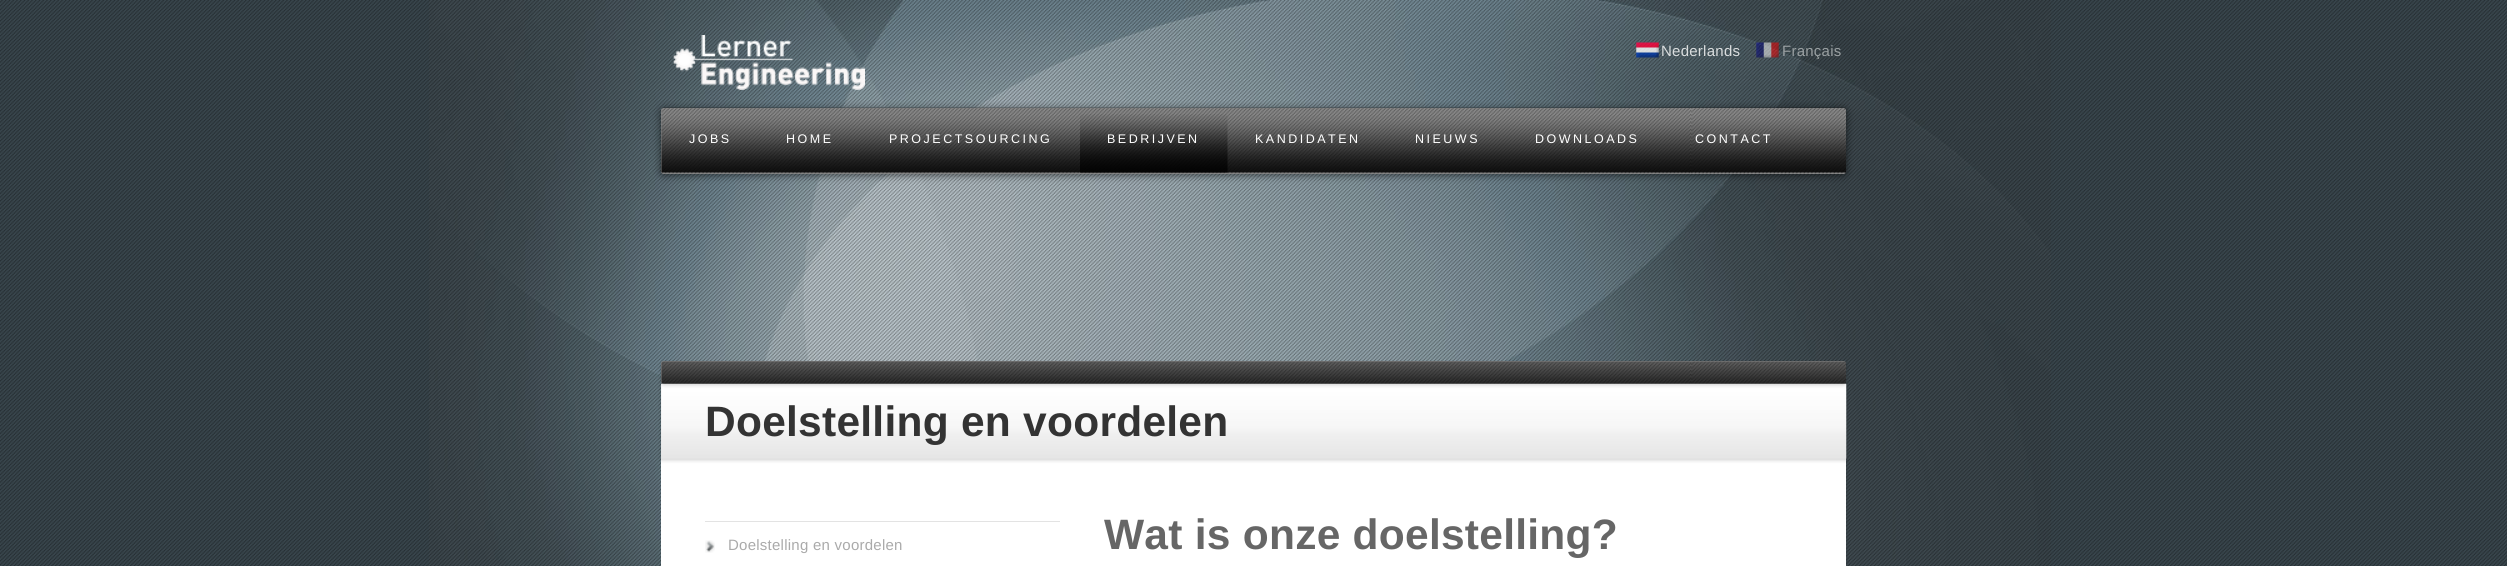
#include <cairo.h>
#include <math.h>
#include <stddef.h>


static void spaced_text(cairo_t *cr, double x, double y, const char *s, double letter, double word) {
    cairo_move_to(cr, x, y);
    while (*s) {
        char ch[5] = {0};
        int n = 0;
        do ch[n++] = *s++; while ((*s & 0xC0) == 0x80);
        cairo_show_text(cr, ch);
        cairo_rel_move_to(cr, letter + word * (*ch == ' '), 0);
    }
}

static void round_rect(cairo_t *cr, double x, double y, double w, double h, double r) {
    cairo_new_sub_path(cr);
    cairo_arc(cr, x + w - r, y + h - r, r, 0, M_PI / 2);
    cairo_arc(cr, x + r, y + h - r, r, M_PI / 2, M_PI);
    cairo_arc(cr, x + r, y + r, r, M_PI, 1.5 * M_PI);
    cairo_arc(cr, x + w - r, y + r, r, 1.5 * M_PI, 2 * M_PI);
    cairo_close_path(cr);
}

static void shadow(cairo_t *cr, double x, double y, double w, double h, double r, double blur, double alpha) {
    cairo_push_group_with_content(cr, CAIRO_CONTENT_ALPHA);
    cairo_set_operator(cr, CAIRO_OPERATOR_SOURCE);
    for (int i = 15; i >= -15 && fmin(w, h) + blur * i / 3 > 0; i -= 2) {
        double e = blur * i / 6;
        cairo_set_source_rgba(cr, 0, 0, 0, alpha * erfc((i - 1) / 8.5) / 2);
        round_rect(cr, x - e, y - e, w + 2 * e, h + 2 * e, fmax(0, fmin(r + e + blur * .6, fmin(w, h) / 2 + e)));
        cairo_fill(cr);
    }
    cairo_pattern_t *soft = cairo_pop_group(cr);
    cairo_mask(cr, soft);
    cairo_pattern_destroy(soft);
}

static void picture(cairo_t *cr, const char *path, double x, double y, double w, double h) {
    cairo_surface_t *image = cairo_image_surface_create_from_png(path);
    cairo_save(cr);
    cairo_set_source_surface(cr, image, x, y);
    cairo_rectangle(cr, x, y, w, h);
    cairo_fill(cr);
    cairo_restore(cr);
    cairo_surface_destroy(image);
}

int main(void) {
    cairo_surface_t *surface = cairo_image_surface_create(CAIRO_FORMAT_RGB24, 2507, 566);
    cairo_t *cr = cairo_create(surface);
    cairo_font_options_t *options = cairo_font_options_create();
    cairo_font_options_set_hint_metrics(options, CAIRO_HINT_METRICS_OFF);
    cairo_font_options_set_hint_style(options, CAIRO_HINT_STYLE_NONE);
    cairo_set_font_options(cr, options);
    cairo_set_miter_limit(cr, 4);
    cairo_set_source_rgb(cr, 0.224, 0.275, 0.302);
    cairo_paint(cr);
    picture(cr, "img1.png", 429, 0, 1622, 566);
    picture(cr, "img2.png", 0, 0, 2507, 566);
    picture(cr, "img3.png", 673, 35, 192, 55);
    picture(cr, "img4.png", 1636, 42, 23, 16);
    cairo_select_font_face(cr, "Liberation Sans", CAIRO_FONT_SLANT_NORMAL, CAIRO_FONT_WEIGHT_NORMAL);
    cairo_set_font_size(cr, 15);
    cairo_set_source_rgb(cr, 0.855, 0.867, 0.871);
    spaced_text(cr, 1661, 56, "Nederlands", 0.25, 0);
    picture(cr, "img5.png", 1756, 42, 23, 16);
    cairo_set_source_rgb(cr, 0.604, 0.627, 0.635);
    spaced_text(cr, 1782, 56, "Français", 0.25, 0);
    cairo_set_source_rgb(cr, 0, 0, 0);
    shadow(cr, 661, 109, 1185, 66, 2.5, 4, 0.6);
    cairo_set_source_rgb(cr, 0.533, 0.533, 0.533);
    round_rect(cr, 661, 108, 1185, 66, 2.5);
    cairo_fill(cr);
    picture(cr, "img6.png", 661, 107, 1185, 67);
    cairo_set_font_size(cr, 12.5);
    cairo_set_source_rgb(cr, 1, 1, 1);
    spaced_text(cr, 689, 143, "JOBS", 2.5, 0);
    spaced_text(cr, 786, 143, "HOME", 2.5, 0);
    spaced_text(cr, 889, 143, "PROJECTSOURCING", 2.5, 0);
    picture(cr, "img7.png", 1080, 114, 148, 59);
    spaced_text(cr, 1107, 143, "BEDRIJVEN", 2.5, 0);
    spaced_text(cr, 1255, 143, "KANDIDATEN", 2.5, 0);
    spaced_text(cr, 1415, 143, "NIEUWS", 2.5, 0);
    spaced_text(cr, 1535, 143, "DOWNLOADS", 2.5, 0);
    spaced_text(cr, 1695, 143, "CONTACT", 2.5, 0);
    cairo_rectangle(cr, 661, 459, 1185, 107);
    cairo_fill(cr);
    cairo_set_source_rgb(cr, 0, 0, 0);
    shadow(cr, 661, 385, 1185, 75, 0, 2, 0.2);
    cairo_set_source_rgb(cr, 0.871, 0.871, 0.871);
    cairo_rectangle(cr, 661, 384, 1185, 75);
    cairo_fill(cr);
    picture(cr, "img9.png", 661, 383, 1186, 76);
    cairo_set_source_rgb(cr, 0, 0, 0);
    shadow(cr, 661, 363, 1185, 22, 2.5, 2, 0.2);
    cairo_set_source_rgb(cr, 0.533, 0.533, 0.533);
    round_rect(cr, 661, 361, 1185, 23, 2.5);
    cairo_fill(cr);
    picture(cr, "img8.png", 661, 361, 1185, 23);
    cairo_select_font_face(cr, "Liberation Sans", CAIRO_FONT_SLANT_NORMAL, CAIRO_FONT_WEIGHT_BOLD);
    cairo_set_font_size(cr, 42.5);
    cairo_set_source_rgb(cr, 0.2, 0.2, 0.2);
    spaced_text(cr, 705, 436, "Doelstelling en voordelen", 0.25, 0);
    cairo_set_source_rgb(cr, 0.89, 0.89, 0.89);
    cairo_rectangle(cr, 705, 521, 355, 1);
    cairo_fill(cr);
    picture(cr, "img10.png", 705, 540, 10, 13);
    cairo_select_font_face(cr, "Liberation Sans", CAIRO_FONT_SLANT_NORMAL, CAIRO_FONT_WEIGHT_NORMAL);
    cairo_set_font_size(cr, 15);
    cairo_set_source_rgb(cr, 0.667, 0.667, 0.667);
    spaced_text(cr, 728, 550, "Doelstelling en voordelen", 0.25, 0);
    cairo_select_font_face(cr, "Liberation Sans", CAIRO_FONT_SLANT_NORMAL, CAIRO_FONT_WEIGHT_BOLD);
    cairo_set_font_size(cr, 42.5);
    cairo_set_source_rgb(cr, 0.4, 0.4, 0.4);
    spaced_text(cr, 1104, 549, "Wat is onze doelstelling?", 0.25, 0);
    cairo_surface_write_to_png(surface, "page.png");
    cairo_font_options_destroy(options);
    cairo_destroy(cr);
    cairo_surface_destroy(surface);
    return 0;
}
